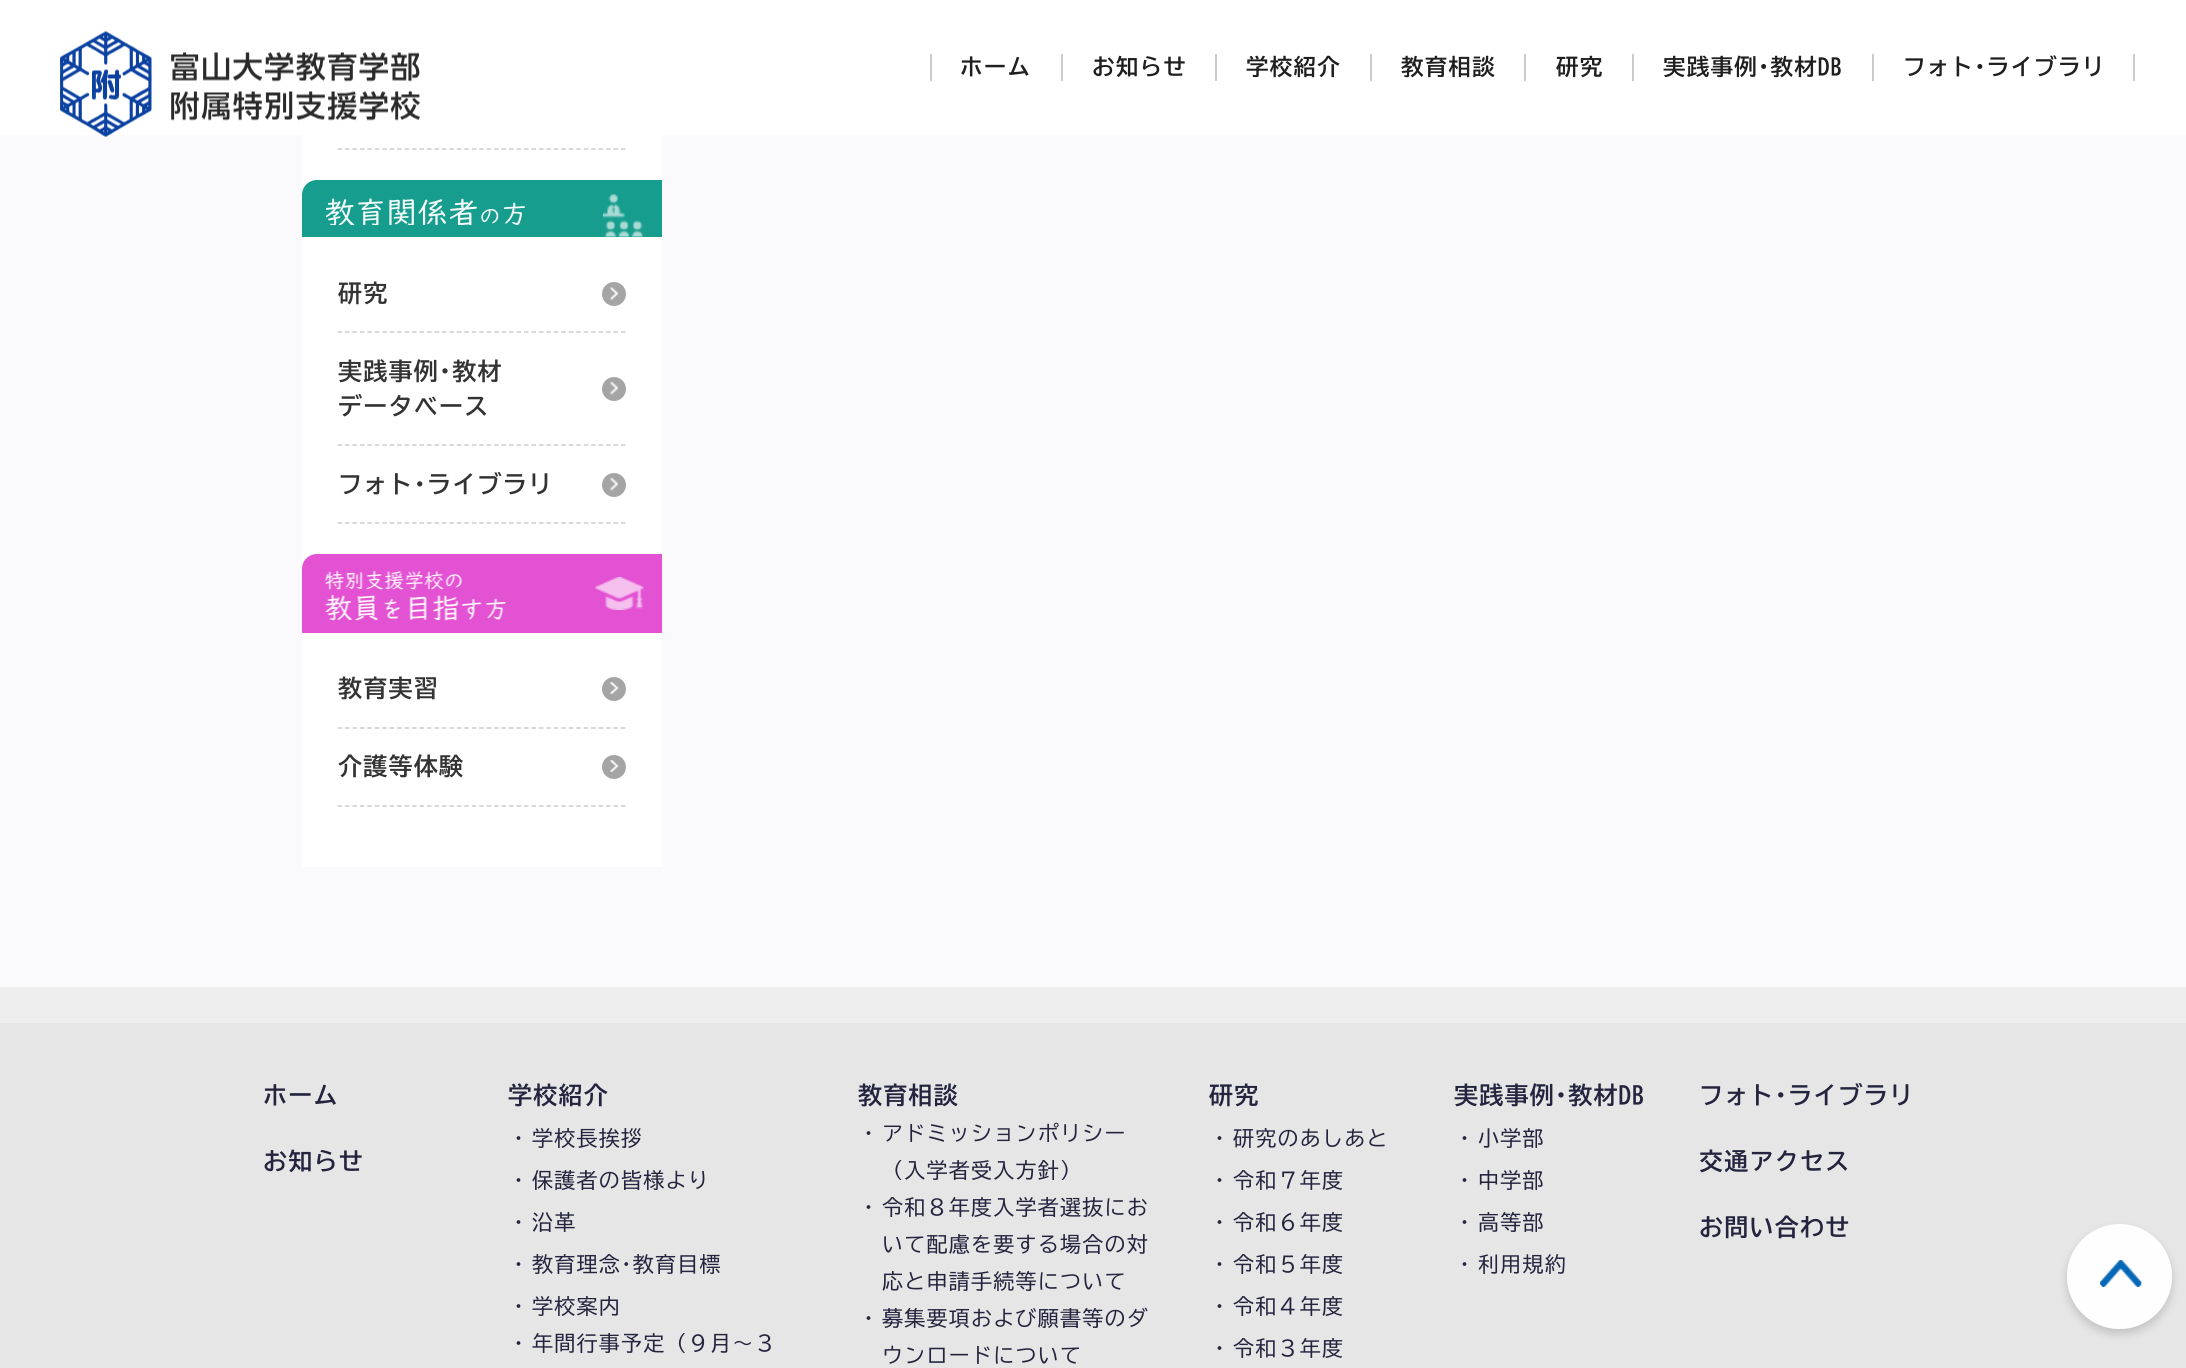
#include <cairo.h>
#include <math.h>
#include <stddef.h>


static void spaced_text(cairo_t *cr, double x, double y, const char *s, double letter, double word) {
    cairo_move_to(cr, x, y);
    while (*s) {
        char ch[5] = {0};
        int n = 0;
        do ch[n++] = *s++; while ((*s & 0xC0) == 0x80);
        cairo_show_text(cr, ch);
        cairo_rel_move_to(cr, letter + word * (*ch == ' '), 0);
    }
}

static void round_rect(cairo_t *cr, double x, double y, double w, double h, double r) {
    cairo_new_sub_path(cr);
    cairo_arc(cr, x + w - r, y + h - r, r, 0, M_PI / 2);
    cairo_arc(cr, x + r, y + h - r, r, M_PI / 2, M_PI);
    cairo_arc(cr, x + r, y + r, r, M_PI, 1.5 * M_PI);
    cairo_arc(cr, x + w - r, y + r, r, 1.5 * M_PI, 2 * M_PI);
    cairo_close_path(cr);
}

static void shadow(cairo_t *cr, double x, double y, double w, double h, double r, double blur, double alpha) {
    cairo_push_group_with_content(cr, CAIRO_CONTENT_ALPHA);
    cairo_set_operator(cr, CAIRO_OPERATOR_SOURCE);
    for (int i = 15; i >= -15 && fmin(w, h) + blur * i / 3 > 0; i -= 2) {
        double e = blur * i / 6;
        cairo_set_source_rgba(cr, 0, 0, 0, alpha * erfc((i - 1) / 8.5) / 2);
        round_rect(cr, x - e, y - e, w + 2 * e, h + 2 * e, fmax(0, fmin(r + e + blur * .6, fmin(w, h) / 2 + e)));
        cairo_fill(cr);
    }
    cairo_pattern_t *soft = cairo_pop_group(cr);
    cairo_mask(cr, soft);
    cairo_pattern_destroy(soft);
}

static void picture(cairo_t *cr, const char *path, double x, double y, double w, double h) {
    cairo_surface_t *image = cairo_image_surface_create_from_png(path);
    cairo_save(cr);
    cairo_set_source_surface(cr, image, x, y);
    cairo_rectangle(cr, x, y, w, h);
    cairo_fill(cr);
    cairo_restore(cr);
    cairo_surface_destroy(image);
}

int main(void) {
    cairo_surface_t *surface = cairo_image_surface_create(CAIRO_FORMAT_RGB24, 2186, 1368);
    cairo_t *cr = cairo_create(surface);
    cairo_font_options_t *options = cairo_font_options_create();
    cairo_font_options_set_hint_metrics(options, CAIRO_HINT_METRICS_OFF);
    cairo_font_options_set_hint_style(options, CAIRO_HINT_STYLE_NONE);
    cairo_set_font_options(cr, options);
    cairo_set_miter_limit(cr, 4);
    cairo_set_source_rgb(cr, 0.98, 0.98, 0.988);
    cairo_paint(cr);
    cairo_set_source_rgb(cr, 1, 1, 1);
    cairo_rectangle(cr, 0, 0, 2186, 135);
    cairo_fill(cr);
    cairo_rectangle(cr, 302, 135, 360, 732);
    cairo_fill(cr);
    picture(cr, "img1.png", 60, 31, 360, 106);
    cairo_set_source_rgb(cr, 0.8, 0.8, 0.8);
    cairo_rectangle(cr, 930, 54, 2, 27);
    cairo_fill(cr);
    cairo_select_font_face(cr, "BIZ UDGothic", CAIRO_FONT_SLANT_NORMAL, CAIRO_FONT_WEIGHT_BOLD);
    cairo_set_font_size(cr, 22.5);
    cairo_set_source_rgb(cr, 0.122, 0.122, 0.122);
    spaced_text(cr, 960, 75, "ホーム", 1.25, 0);
    cairo_set_source_rgb(cr, 0.8, 0.8, 0.8);
    cairo_rectangle(cr, 1061, 54, 2, 27);
    cairo_fill(cr);
    cairo_set_source_rgb(cr, 0.122, 0.122, 0.122);
    spaced_text(cr, 1092, 75, "お知らせ", 1.25, 0);
    cairo_set_source_rgb(cr, 0.8, 0.8, 0.8);
    cairo_rectangle(cr, 1215, 54, 2, 27);
    cairo_fill(cr);
    cairo_set_source_rgb(cr, 0.122, 0.122, 0.122);
    spaced_text(cr, 1246, 75, "学校紹介", 1.25, 0);
    cairo_set_source_rgb(cr, 0.8, 0.8, 0.8);
    cairo_rectangle(cr, 1370, 54, 2, 27);
    cairo_fill(cr);
    cairo_set_source_rgb(cr, 0.122, 0.122, 0.122);
    spaced_text(cr, 1401, 75, "教育相談", 1.25, 0);
    cairo_set_source_rgb(cr, 0.8, 0.8, 0.8);
    cairo_rectangle(cr, 1524, 54, 2, 27);
    cairo_fill(cr);
    cairo_set_source_rgb(cr, 0.122, 0.122, 0.122);
    spaced_text(cr, 1556, 75, "研究", 1.25, 0);
    cairo_set_source_rgb(cr, 0.8, 0.8, 0.8);
    cairo_rectangle(cr, 1632, 54, 2, 27);
    cairo_fill(cr);
    cairo_set_source_rgb(cr, 0.122, 0.122, 0.122);
    spaced_text(cr, 1663, 75, "実践事例･教材DB", 1.25, 0);
    cairo_set_source_rgb(cr, 0.8, 0.8, 0.8);
    cairo_rectangle(cr, 1872, 54, 2, 27);
    cairo_fill(cr);
    cairo_set_source_rgb(cr, 0.122, 0.122, 0.122);
    spaced_text(cr, 1903, 75, "フォト･ライブラリ", 1.25, 0);
    cairo_set_source_rgb(cr, 0.8, 0.8, 0.8);
    cairo_rectangle(cr, 2133, 54, 2, 27);
    cairo_fill(cr);
    cairo_new_path(cr);
    cairo_move_to(cr, 337.5, 149);
    cairo_line_to(cr, 625.5, 149);
    cairo_set_line_width(cr, 1.5);
    cairo_set_dash(cr, (double[]){4.5, 2.96}, 2, 0);
    cairo_stroke(cr);
    cairo_set_source_rgb(cr, 0.09, 0.616, 0.553);
    cairo_new_path(cr);
    cairo_move_to(cr, 317, 180);
    cairo_line_to(cr, 662, 180);
    cairo_line_to(cr, 662, 237);
    cairo_line_to(cr, 302, 237);
    cairo_line_to(cr, 302, 195);
    cairo_curve_to(cr, 302, 186.5, 308.5, 180, 317, 180);
    cairo_close_path(cr);
    cairo_fill(cr);
    picture(cr, "img2.png", 326, 198, 199, 27);
    picture(cr, "img3.png", 603, 194, 41, 43);
    cairo_new_path(cr);
    cairo_move_to(cr, 337.5, 332);
    cairo_line_to(cr, 625.5, 332);
    cairo_set_source_rgb(cr, 0.8, 0.8, 0.8);
    cairo_stroke(cr);
    cairo_set_font_size(cr, 24);
    cairo_set_source_rgb(cr, 0.2, 0.2, 0.2);
    spaced_text(cr, 338, 302, "研究", 1.25, 0);
    cairo_set_source_rgb(cr, 0.647, 0.647, 0.647);
    cairo_new_path(cr);
    cairo_arc(cr, 614, 294, 12, 0, 2 * M_PI);
    cairo_fill(cr);
    picture(cr, "img4.png", 610, 287, 8, 13);
    cairo_new_path(cr);
    cairo_move_to(cr, 337.5, 445);
    cairo_line_to(cr, 625.5, 445);
    cairo_set_source_rgb(cr, 0.8, 0.8, 0.8);
    cairo_stroke(cr);
    cairo_set_source_rgb(cr, 0.2, 0.2, 0.2);
    spaced_text(cr, 338, 380, "実践事例･教材", 1.25, 0);
    cairo_set_source_rgb(cr, 0.647, 0.647, 0.647);
    cairo_new_path(cr);
    cairo_arc(cr, 614, 389, 12, 0, 2 * M_PI);
    cairo_fill(cr);
    picture(cr, "img5.png", 610, 381, 8, 14);
    cairo_set_source_rgb(cr, 0.2, 0.2, 0.2);
    spaced_text(cr, 338, 415, "データベース", 1.25, 0);
    cairo_new_path(cr);
    cairo_move_to(cr, 337.5, 523);
    cairo_line_to(cr, 625.5, 523);
    cairo_set_source_rgb(cr, 0.8, 0.8, 0.8);
    cairo_stroke(cr);
    cairo_set_source_rgb(cr, 0.2, 0.2, 0.2);
    spaced_text(cr, 338, 493, "フォト･ライブラリ", 1.25, 0);
    cairo_set_source_rgb(cr, 0.647, 0.647, 0.647);
    cairo_new_path(cr);
    cairo_arc(cr, 614, 485, 12, 0, 2 * M_PI);
    cairo_fill(cr);
    picture(cr, "img5.png", 610, 477, 8, 14);
    cairo_set_source_rgb(cr, 0.89, 0.322, 0.824);
    cairo_new_path(cr);
    cairo_move_to(cr, 317, 554);
    cairo_line_to(cr, 662, 554);
    cairo_line_to(cr, 662, 633);
    cairo_line_to(cr, 302, 633);
    cairo_line_to(cr, 302, 569);
    cairo_curve_to(cr, 302, 560.5, 308.5, 554, 317, 554);
    cairo_close_path(cr);
    cairo_fill(cr);
    picture(cr, "img6.png", 325, 571, 181, 50);
    picture(cr, "img7.png", 595, 577, 49, 33);
    cairo_new_path(cr);
    cairo_move_to(cr, 337.5, 728);
    cairo_line_to(cr, 625.5, 728);
    cairo_set_source_rgb(cr, 0.8, 0.8, 0.8);
    cairo_stroke(cr);
    cairo_set_source_rgb(cr, 0.2, 0.2, 0.2);
    spaced_text(cr, 338, 697, "教育実習", 1.25, 0);
    cairo_set_source_rgb(cr, 0.647, 0.647, 0.647);
    cairo_new_path(cr);
    cairo_arc(cr, 614, 689, 12, 0, 2 * M_PI);
    cairo_fill(cr);
    picture(cr, "img8.png", 610, 682, 9, 12);
    cairo_new_path(cr);
    cairo_move_to(cr, 337.5, 806);
    cairo_line_to(cr, 625.5, 806);
    cairo_set_source_rgb(cr, 0.8, 0.8, 0.8);
    cairo_stroke(cr);
    cairo_set_source_rgb(cr, 0.2, 0.2, 0.2);
    spaced_text(cr, 338, 775, "介護等体験", 1.25, 0);
    cairo_set_source_rgb(cr, 0.647, 0.647, 0.647);
    cairo_new_path(cr);
    cairo_arc(cr, 614, 767, 12, 0, 2 * M_PI);
    cairo_fill(cr);
    picture(cr, "img8.png", 610, 760, 9, 12);
    cairo_set_source_rgb(cr, 0.933, 0.933, 0.933);
    cairo_rectangle(cr, 0, 987, 2186, 36);
    cairo_fill(cr);
    cairo_set_source_rgb(cr, 0.902, 0.902, 0.902);
    cairo_rectangle(cr, 0, 1023, 2186, 345);
    cairo_fill(cr);
    cairo_set_source_rgb(cr, 0.141, 0.141, 0.247);
    spaced_text(cr, 263, 1104, "ホーム", 1.25, 0);
    spaced_text(cr, 263, 1170, "お知らせ", 1.25, 0);
    spaced_text(cr, 508, 1104, "学校紹介", 1.25, 0);
    cairo_select_font_face(cr, "BIZ UDGothic", CAIRO_FONT_SLANT_NORMAL, CAIRO_FONT_WEIGHT_NORMAL);
    cairo_set_font_size(cr, 21);
    spaced_text(cr, 508, 1146, "・", 1.25, 0);
    spaced_text(cr, 532, 1146, "学校長挨拶", 1.25, 0);
    spaced_text(cr, 508, 1188, "・", 1.25, 0);
    spaced_text(cr, 532, 1188, "保護者の皆様より", 1.25, 0);
    spaced_text(cr, 508, 1230, "・", 1.25, 0);
    spaced_text(cr, 532, 1230, "沿革", 1.25, 0);
    spaced_text(cr, 508, 1272, "・", 1.25, 0);
    spaced_text(cr, 532, 1272, "教育理念･教育目標", 1.25, 0);
    spaced_text(cr, 508, 1314, "・", 1.25, 0);
    spaced_text(cr, 532, 1314, "学校案内", 1.25, 0);
    spaced_text(cr, 508, 1351, "・", 1.25, 0);
    spaced_text(cr, 532, 1351, "年間行事予定（９月～３", 1.25, 0);
    cairo_select_font_face(cr, "BIZ UDGothic", CAIRO_FONT_SLANT_NORMAL, CAIRO_FONT_WEIGHT_BOLD);
    cairo_set_font_size(cr, 24);
    spaced_text(cr, 858, 1104, "教育相談", 1.25, 0);
    cairo_select_font_face(cr, "BIZ UDGothic", CAIRO_FONT_SLANT_NORMAL, CAIRO_FONT_WEIGHT_NORMAL);
    cairo_set_font_size(cr, 21);
    spaced_text(cr, 858, 1141, "・", 1.25, 0);
    spaced_text(cr, 882, 1141, "アドミッションポリシー", 1.25, 0);
    spaced_text(cr, 882, 1178, "（入学者受入方針）", 1.25, 0);
    spaced_text(cr, 858, 1215, "・", 1.25, 0);
    spaced_text(cr, 882, 1215, "令和８年度入学者選抜にお", 1.25, 0);
    spaced_text(cr, 882, 1252, "いて配慮を要する場合の対", 1.25, 0);
    spaced_text(cr, 882, 1289, "応と申請手続等について", 1.25, 0);
    spaced_text(cr, 858, 1326, "・", 1.25, 0);
    spaced_text(cr, 882, 1326, "募集要項および願書等のダ", 1.25, 0);
    spaced_text(cr, 882, 1363, "ウンロードについて", 1.25, 0);
    cairo_select_font_face(cr, "BIZ UDGothic", CAIRO_FONT_SLANT_NORMAL, CAIRO_FONT_WEIGHT_BOLD);
    cairo_set_font_size(cr, 24);
    spaced_text(cr, 1209, 1104, "研究", 1.25, 0);
    cairo_select_font_face(cr, "BIZ UDGothic", CAIRO_FONT_SLANT_NORMAL, CAIRO_FONT_WEIGHT_NORMAL);
    cairo_set_font_size(cr, 21);
    spaced_text(cr, 1209, 1146, "・", 1.25, 0);
    spaced_text(cr, 1233, 1146, "研究のあしあと", 1.25, 0);
    spaced_text(cr, 1209, 1188, "・", 1.25, 0);
    spaced_text(cr, 1233, 1188, "令和７年度", 1.25, 0);
    spaced_text(cr, 1209, 1230, "・", 1.25, 0);
    spaced_text(cr, 1233, 1230, "令和６年度", 1.25, 0);
    spaced_text(cr, 1209, 1272, "・", 1.25, 0);
    spaced_text(cr, 1233, 1272, "令和５年度", 1.25, 0);
    spaced_text(cr, 1209, 1314, "・", 1.25, 0);
    spaced_text(cr, 1233, 1314, "令和４年度", 1.25, 0);
    spaced_text(cr, 1209, 1356, "・", 1.25, 0);
    spaced_text(cr, 1233, 1356, "令和３年度", 1.25, 0);
    cairo_select_font_face(cr, "BIZ UDGothic", CAIRO_FONT_SLANT_NORMAL, CAIRO_FONT_WEIGHT_BOLD);
    cairo_set_font_size(cr, 24);
    spaced_text(cr, 1454, 1104, "実践事例･教材DB", 1.25, 0);
    cairo_select_font_face(cr, "BIZ UDGothic", CAIRO_FONT_SLANT_NORMAL, CAIRO_FONT_WEIGHT_NORMAL);
    cairo_set_font_size(cr, 21);
    spaced_text(cr, 1454, 1146, "・", 1.25, 0);
    spaced_text(cr, 1478, 1146, "小学部", 1.25, 0);
    spaced_text(cr, 1454, 1188, "・", 1.25, 0);
    spaced_text(cr, 1478, 1188, "中学部", 1.25, 0);
    spaced_text(cr, 1454, 1230, "・", 1.25, 0);
    spaced_text(cr, 1478, 1230, "高等部", 1.25, 0);
    spaced_text(cr, 1454, 1272, "・", 1.25, 0);
    spaced_text(cr, 1478, 1272, "利用規約", 1.25, 0);
    cairo_select_font_face(cr, "BIZ UDGothic", CAIRO_FONT_SLANT_NORMAL, CAIRO_FONT_WEIGHT_BOLD);
    cairo_set_font_size(cr, 24);
    spaced_text(cr, 1699, 1104, "フォト･ライブラリ", 1.25, 0);
    spaced_text(cr, 1699, 1170, "交通アクセス", 1.25, 0);
    spaced_text(cr, 1699, 1236, "お問い合わせ", 1.25, 0);
    cairo_save(cr);
    cairo_set_fill_rule(cr, CAIRO_FILL_RULE_EVEN_ODD);
    cairo_new_path(cr);
    cairo_move_to(cr, 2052, 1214);
    cairo_line_to(cr, 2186, 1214);
    cairo_line_to(cr, 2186, 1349);
    cairo_line_to(cr, 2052, 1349);
    cairo_close_path(cr);
    cairo_move_to(cr, 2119.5, 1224);
    cairo_curve_to(cr, 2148.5, 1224, 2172, 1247.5, 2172, 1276.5);
    cairo_curve_to(cr, 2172, 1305.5, 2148.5, 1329, 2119.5, 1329);
    cairo_curve_to(cr, 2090.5, 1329, 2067, 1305.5, 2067, 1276.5);
    cairo_curve_to(cr, 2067, 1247.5, 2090.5, 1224, 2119.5, 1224);
    cairo_close_path(cr);
    cairo_clip(cr);
    cairo_set_source_rgb(cr, 0, 0, 0);
    shadow(cr, 2067, 1229, 105, 105, 52.5, 4.5, 0.16);
    cairo_restore(cr);
    cairo_set_source_rgba(cr, 1, 1, 1, 0.95);
    cairo_arc(cr, 2119.5, 1276.5, 52.5, 0, 2 * M_PI);
    cairo_fill(cr);
    picture(cr, "img9.png", 2100, 1259, 42, 28);
    cairo_surface_write_to_png(surface, "page.png");
    cairo_font_options_destroy(options);
    cairo_destroy(cr);
    cairo_surface_destroy(surface);
    return 0;
}
